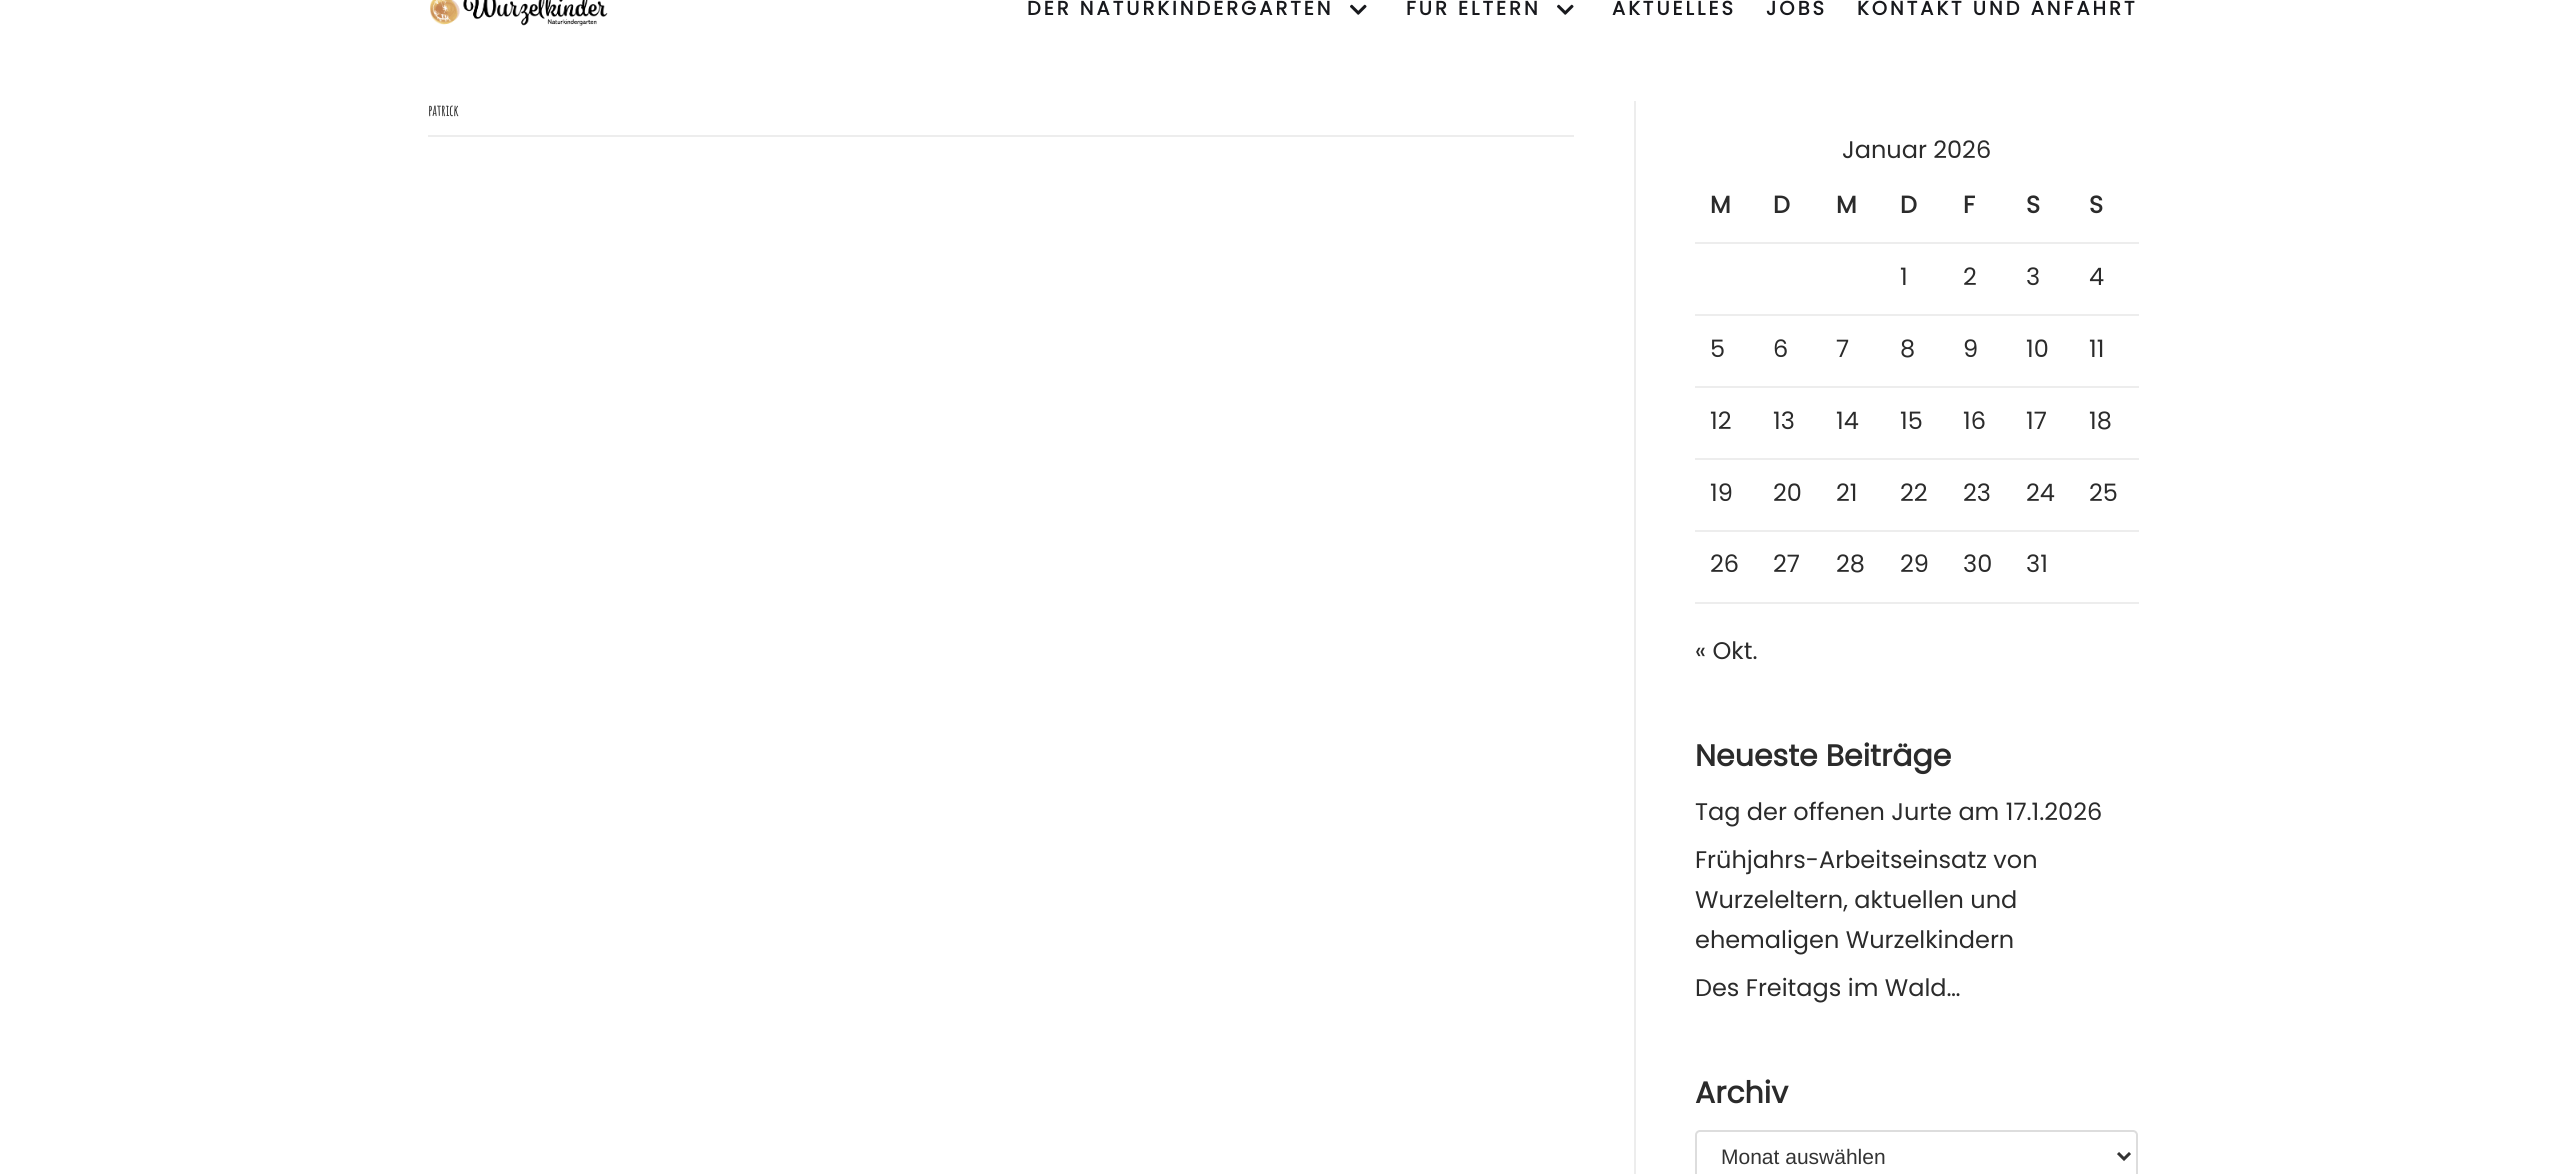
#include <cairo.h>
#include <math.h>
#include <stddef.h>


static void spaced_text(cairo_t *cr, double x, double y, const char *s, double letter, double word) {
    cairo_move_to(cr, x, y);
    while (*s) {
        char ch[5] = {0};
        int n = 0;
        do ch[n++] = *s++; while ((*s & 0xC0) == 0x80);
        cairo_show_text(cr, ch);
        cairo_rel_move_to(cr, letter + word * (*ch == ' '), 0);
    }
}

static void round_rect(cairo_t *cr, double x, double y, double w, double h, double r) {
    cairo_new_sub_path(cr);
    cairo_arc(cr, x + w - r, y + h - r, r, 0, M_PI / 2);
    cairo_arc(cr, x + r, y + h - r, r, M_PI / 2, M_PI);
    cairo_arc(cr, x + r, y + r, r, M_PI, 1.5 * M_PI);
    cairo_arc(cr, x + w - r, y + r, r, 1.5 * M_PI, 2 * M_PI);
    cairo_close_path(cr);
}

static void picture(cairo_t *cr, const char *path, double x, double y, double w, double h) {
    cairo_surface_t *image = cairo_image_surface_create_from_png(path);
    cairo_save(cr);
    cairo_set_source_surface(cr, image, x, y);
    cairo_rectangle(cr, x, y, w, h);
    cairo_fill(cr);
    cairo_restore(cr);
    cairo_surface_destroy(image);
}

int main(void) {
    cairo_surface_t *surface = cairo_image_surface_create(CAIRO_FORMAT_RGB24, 2565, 1174);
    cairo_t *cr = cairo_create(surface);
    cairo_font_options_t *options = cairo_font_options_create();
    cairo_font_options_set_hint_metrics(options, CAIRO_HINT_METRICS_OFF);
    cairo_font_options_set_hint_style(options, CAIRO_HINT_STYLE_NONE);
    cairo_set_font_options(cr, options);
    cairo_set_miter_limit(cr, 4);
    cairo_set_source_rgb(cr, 1, 1, 1);
    cairo_paint(cr);
    picture(cr, "img1.png", 430, 0, 178, 26);
    cairo_select_font_face(cr, "Poppins", CAIRO_FONT_SLANT_NORMAL, CAIRO_FONT_WEIGHT_BOLD);
    cairo_set_font_size(cr, 19.5);
    cairo_set_source_rgb(cr, 0.094, 0.098, 0.114);
    spaced_text(cr, 1027, 15, "DER NATURKINDERGARTEN", 3, 0);
    picture(cr, "img2.png", 1350, 4, 17, 11);
    spaced_text(cr, 1406, 15, "FÜR ELTERN", 3, 0);
    picture(cr, "img2.png", 1557, 4, 17, 11);
    spaced_text(cr, 1612, 15, "AKTUELLES", 3, 0);
    spaced_text(cr, 1766, 15, "JOBS", 3, 0);
    spaced_text(cr, 1857, 15, "KONTAKT UND ANFAHRT", 3, 0);
    cairo_set_source_rgb(cr, 0.929, 0.929, 0.929);
    cairo_rectangle(cr, 428, 135, 1146, 2);
    cairo_fill(cr);
    cairo_select_font_face(cr, "Amatic SC", CAIRO_FONT_SLANT_NORMAL, CAIRO_FONT_WEIGHT_BOLD);
    cairo_set_font_size(cr, 15);
    cairo_set_source_rgb(cr, 0.169, 0.169, 0.169);
    cairo_move_to(cr, 428, 116);
    cairo_show_text(cr, "patrick");
    cairo_set_source_rgb(cr, 0.929, 0.929, 0.929);
    cairo_rectangle(cr, 1634, 101, 2, 1073);
    cairo_fill(cr);
    cairo_select_font_face(cr, "Poppins", CAIRO_FONT_SLANT_NORMAL, CAIRO_FONT_WEIGHT_NORMAL);
    cairo_set_font_size(cr, 24);
    cairo_set_source_rgb(cr, 0.169, 0.169, 0.169);
    cairo_move_to(cr, 1842, 158);
    cairo_show_text(cr, "Januar 2026");
    cairo_select_font_face(cr, "Poppins", CAIRO_FONT_SLANT_NORMAL, CAIRO_FONT_WEIGHT_BOLD);
    cairo_move_to(cr, 1710, 213);
    cairo_show_text(cr, "M");
    cairo_move_to(cr, 1773, 213);
    cairo_show_text(cr, "D");
    cairo_move_to(cr, 1836, 213);
    cairo_show_text(cr, "M");
    cairo_move_to(cr, 1900, 213);
    cairo_show_text(cr, "D");
    cairo_move_to(cr, 1963, 213);
    cairo_show_text(cr, "F");
    cairo_move_to(cr, 2026, 213);
    cairo_show_text(cr, "S");
    cairo_set_source_rgb(cr, 0.929, 0.929, 0.929);
    cairo_rectangle(cr, 1695, 242, 444, 2);
    cairo_fill(cr);
    cairo_set_source_rgb(cr, 0.169, 0.169, 0.169);
    cairo_move_to(cr, 2089, 213);
    cairo_show_text(cr, "S");
    cairo_select_font_face(cr, "Poppins", CAIRO_FONT_SLANT_NORMAL, CAIRO_FONT_WEIGHT_NORMAL);
    cairo_move_to(cr, 1900, 285);
    cairo_show_text(cr, "1");
    cairo_move_to(cr, 1963, 285);
    cairo_show_text(cr, "2");
    cairo_move_to(cr, 2026, 285);
    cairo_show_text(cr, "3");
    cairo_set_source_rgb(cr, 0.929, 0.929, 0.929);
    cairo_rectangle(cr, 1695, 314, 444, 2);
    cairo_fill(cr);
    cairo_set_source_rgb(cr, 0.169, 0.169, 0.169);
    cairo_move_to(cr, 2089, 285);
    cairo_show_text(cr, "4");
    cairo_move_to(cr, 1710, 357);
    cairo_show_text(cr, "5");
    cairo_move_to(cr, 1773, 357);
    cairo_show_text(cr, "6");
    cairo_move_to(cr, 1836, 357);
    cairo_show_text(cr, "7");
    cairo_move_to(cr, 1900, 357);
    cairo_show_text(cr, "8");
    cairo_move_to(cr, 1963, 357);
    cairo_show_text(cr, "9");
    cairo_move_to(cr, 2026, 357);
    cairo_show_text(cr, "10");
    cairo_set_source_rgb(cr, 0.929, 0.929, 0.929);
    cairo_rectangle(cr, 1695, 386, 444, 2);
    cairo_fill(cr);
    cairo_set_source_rgb(cr, 0.169, 0.169, 0.169);
    cairo_move_to(cr, 2089, 357);
    cairo_show_text(cr, "11");
    cairo_move_to(cr, 1710, 429);
    cairo_show_text(cr, "12");
    cairo_move_to(cr, 1773, 429);
    cairo_show_text(cr, "13");
    cairo_move_to(cr, 1836, 429);
    cairo_show_text(cr, "14");
    cairo_move_to(cr, 1900, 429);
    cairo_show_text(cr, "15");
    cairo_move_to(cr, 1963, 429);
    cairo_show_text(cr, "16");
    cairo_move_to(cr, 2026, 429);
    cairo_show_text(cr, "17");
    cairo_set_source_rgb(cr, 0.929, 0.929, 0.929);
    cairo_rectangle(cr, 1695, 458, 444, 2);
    cairo_fill(cr);
    cairo_set_source_rgb(cr, 0.169, 0.169, 0.169);
    cairo_move_to(cr, 2089, 429);
    cairo_show_text(cr, "18");
    cairo_move_to(cr, 1710, 501);
    cairo_show_text(cr, "19");
    cairo_move_to(cr, 1773, 501);
    cairo_show_text(cr, "20");
    cairo_move_to(cr, 1836, 501);
    cairo_show_text(cr, "21");
    cairo_move_to(cr, 1900, 501);
    cairo_show_text(cr, "22");
    cairo_move_to(cr, 1963, 501);
    cairo_show_text(cr, "23");
    cairo_move_to(cr, 2026, 501);
    cairo_show_text(cr, "24");
    cairo_set_source_rgb(cr, 0.929, 0.929, 0.929);
    cairo_rectangle(cr, 1695, 530, 444, 2);
    cairo_fill(cr);
    cairo_set_source_rgb(cr, 0.169, 0.169, 0.169);
    cairo_move_to(cr, 2089, 501);
    cairo_show_text(cr, "25");
    cairo_move_to(cr, 1710, 572);
    cairo_show_text(cr, "26");
    cairo_move_to(cr, 1773, 572);
    cairo_show_text(cr, "27");
    cairo_move_to(cr, 1836, 572);
    cairo_show_text(cr, "28");
    cairo_move_to(cr, 1900, 572);
    cairo_show_text(cr, "29");
    cairo_move_to(cr, 1963, 572);
    cairo_show_text(cr, "30");
    cairo_move_to(cr, 2026, 572);
    cairo_show_text(cr, "31");
    cairo_set_source_rgb(cr, 0.929, 0.929, 0.929);
    cairo_rectangle(cr, 1695, 602, 444, 2);
    cairo_fill(cr);
    cairo_set_source_rgb(cr, 0.169, 0.169, 0.169);
    cairo_move_to(cr, 1695, 659);
    cairo_show_text(cr, "« Okt.");
    cairo_select_font_face(cr, "Poppins", CAIRO_FONT_SLANT_NORMAL, CAIRO_FONT_WEIGHT_BOLD);
    cairo_set_font_size(cr, 30);
    cairo_move_to(cr, 1695, 766);
    cairo_show_text(cr, "Neueste Beiträge");
    cairo_select_font_face(cr, "Poppins", CAIRO_FONT_SLANT_NORMAL, CAIRO_FONT_WEIGHT_NORMAL);
    cairo_set_font_size(cr, 24);
    cairo_move_to(cr, 1695, 820);
    cairo_show_text(cr, "Tag der offenen Jurte am 17.1.2026");
    cairo_move_to(cr, 1695, 868);
    cairo_show_text(cr, "Frühjahrs-Arbeitseinsatz von");
    cairo_move_to(cr, 1695, 908);
    cairo_show_text(cr, "Wurzeleltern, aktuellen und");
    cairo_move_to(cr, 1695, 948);
    cairo_show_text(cr, "ehemaligen Wurzelkindern");
    cairo_move_to(cr, 1695, 996);
    cairo_show_text(cr, "Des Freitags im Wald…");
    cairo_select_font_face(cr, "Poppins", CAIRO_FONT_SLANT_NORMAL, CAIRO_FONT_WEIGHT_BOLD);
    cairo_set_font_size(cr, 30);
    cairo_move_to(cr, 1695, 1103);
    cairo_show_text(cr, "Archiv");
    round_rect(cr, 1696, 1131, 441, 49, 4);
    cairo_set_source_rgb(cr, 0.867, 0.867, 0.867);
    cairo_stroke(cr);
    cairo_new_path(cr);
    cairo_move_to(cr, 2118, 1153);
    cairo_line_to(cr, 2124, 1159);
    cairo_line_to(cr, 2130, 1153);
    cairo_set_source_rgb(cr, 0.2, 0.2, 0.2);
    cairo_set_line_width(cr, 3);
    cairo_stroke(cr);
    cairo_select_font_face(cr, "Liberation Sans", CAIRO_FONT_SLANT_NORMAL, CAIRO_FONT_WEIGHT_NORMAL);
    cairo_set_font_size(cr, 21);
    cairo_move_to(cr, 1721, 1164);
    cairo_show_text(cr, "Monat auswählen");
    cairo_surface_write_to_png(surface, "page.png");
    cairo_font_options_destroy(options);
    cairo_destroy(cr);
    cairo_surface_destroy(surface);
    return 0;
}
